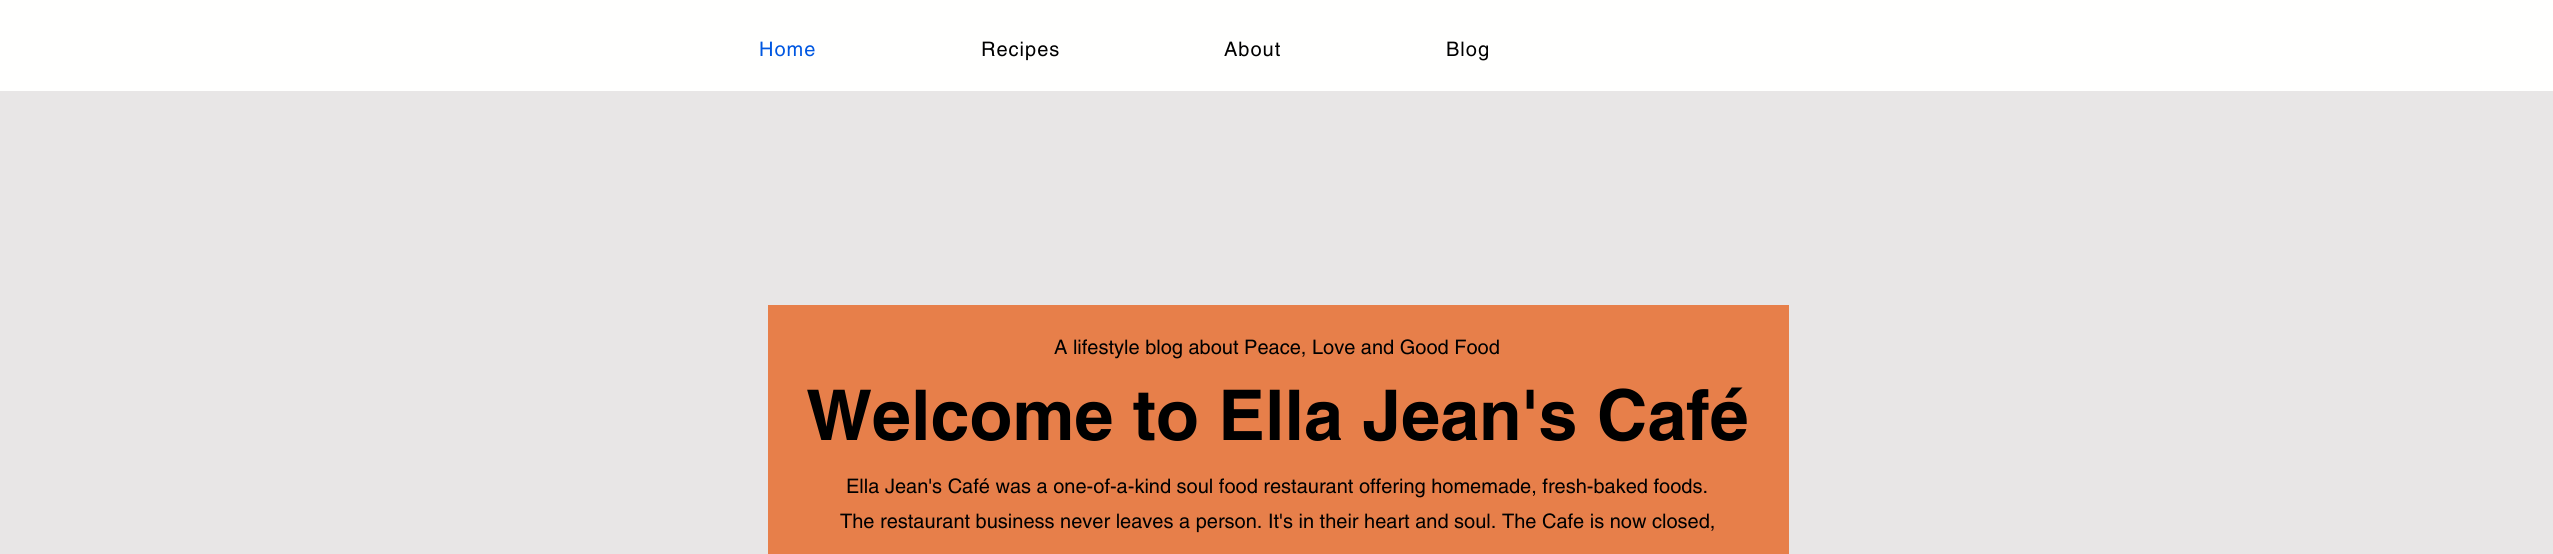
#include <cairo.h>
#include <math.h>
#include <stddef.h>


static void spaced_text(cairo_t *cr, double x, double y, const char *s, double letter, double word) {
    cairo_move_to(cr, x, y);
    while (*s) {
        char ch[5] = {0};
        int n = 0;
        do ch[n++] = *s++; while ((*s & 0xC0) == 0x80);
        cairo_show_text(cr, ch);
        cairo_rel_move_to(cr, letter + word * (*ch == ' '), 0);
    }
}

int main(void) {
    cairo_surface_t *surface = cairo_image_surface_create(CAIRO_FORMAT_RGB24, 2553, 554);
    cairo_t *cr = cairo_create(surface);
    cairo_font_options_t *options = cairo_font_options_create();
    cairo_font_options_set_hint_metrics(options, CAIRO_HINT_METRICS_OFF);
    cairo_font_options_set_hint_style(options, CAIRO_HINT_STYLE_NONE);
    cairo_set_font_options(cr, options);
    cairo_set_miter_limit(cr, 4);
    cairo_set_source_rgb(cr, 0.91, 0.902, 0.902);
    cairo_paint(cr);
    cairo_set_source_rgb(cr, 1, 1, 0.996);
    cairo_rectangle(cr, 0, 0, 2553, 91);
    cairo_fill(cr);
    cairo_select_font_face(cr, "helvetica", CAIRO_FONT_SLANT_NORMAL, CAIRO_FONT_WEIGHT_NORMAL);
    cairo_set_font_size(cr, 20);
    cairo_set_source_rgb(cr, 0, 0.341, 0.882);
    spaced_text(cr, 759, 56, "Home", 1, 0);
    cairo_set_source_rgb(cr, 0, 0, 0);
    spaced_text(cr, 981, 56, "Recipes", 1, 0);
    spaced_text(cr, 1224, 56, "About", 1, 0);
    spaced_text(cr, 1446, 56, "Blog", 1, 0);
    cairo_set_source_rgb(cr, 0.906, 0.498, 0.29);
    cairo_rectangle(cr, 768, 305, 1021, 249);
    cairo_fill(cr);
    cairo_set_source_rgb(cr, 0, 0, 0);
    cairo_move_to(cr, 1054, 354);
    cairo_show_text(cr, "A lifestyle blog about Peace, Love and Good Food");
    cairo_select_font_face(cr, "helvetica", CAIRO_FONT_SLANT_NORMAL, CAIRO_FONT_WEIGHT_BOLD);
    cairo_set_font_size(cr, 70);
    cairo_move_to(cr, 806, 440);
    cairo_show_text(cr, "Welcome to Ella Jean's Café");
    cairo_select_font_face(cr, "helvetica", CAIRO_FONT_SLANT_NORMAL, CAIRO_FONT_WEIGHT_NORMAL);
    cairo_set_font_size(cr, 20);
    cairo_move_to(cr, 846, 493);
    cairo_show_text(cr, "Ella Jean's Café was a one-of-a-kind soul food restaurant offering homemade, fresh-baked foods.");
    cairo_move_to(cr, 840, 528);
    cairo_show_text(cr, "The restaurant business never leaves a person. It's in their heart and soul. The Cafe is now closed,");
    cairo_surface_write_to_png(surface, "page.png");
    cairo_font_options_destroy(options);
    cairo_destroy(cr);
    cairo_surface_destroy(surface);
    return 0;
}
